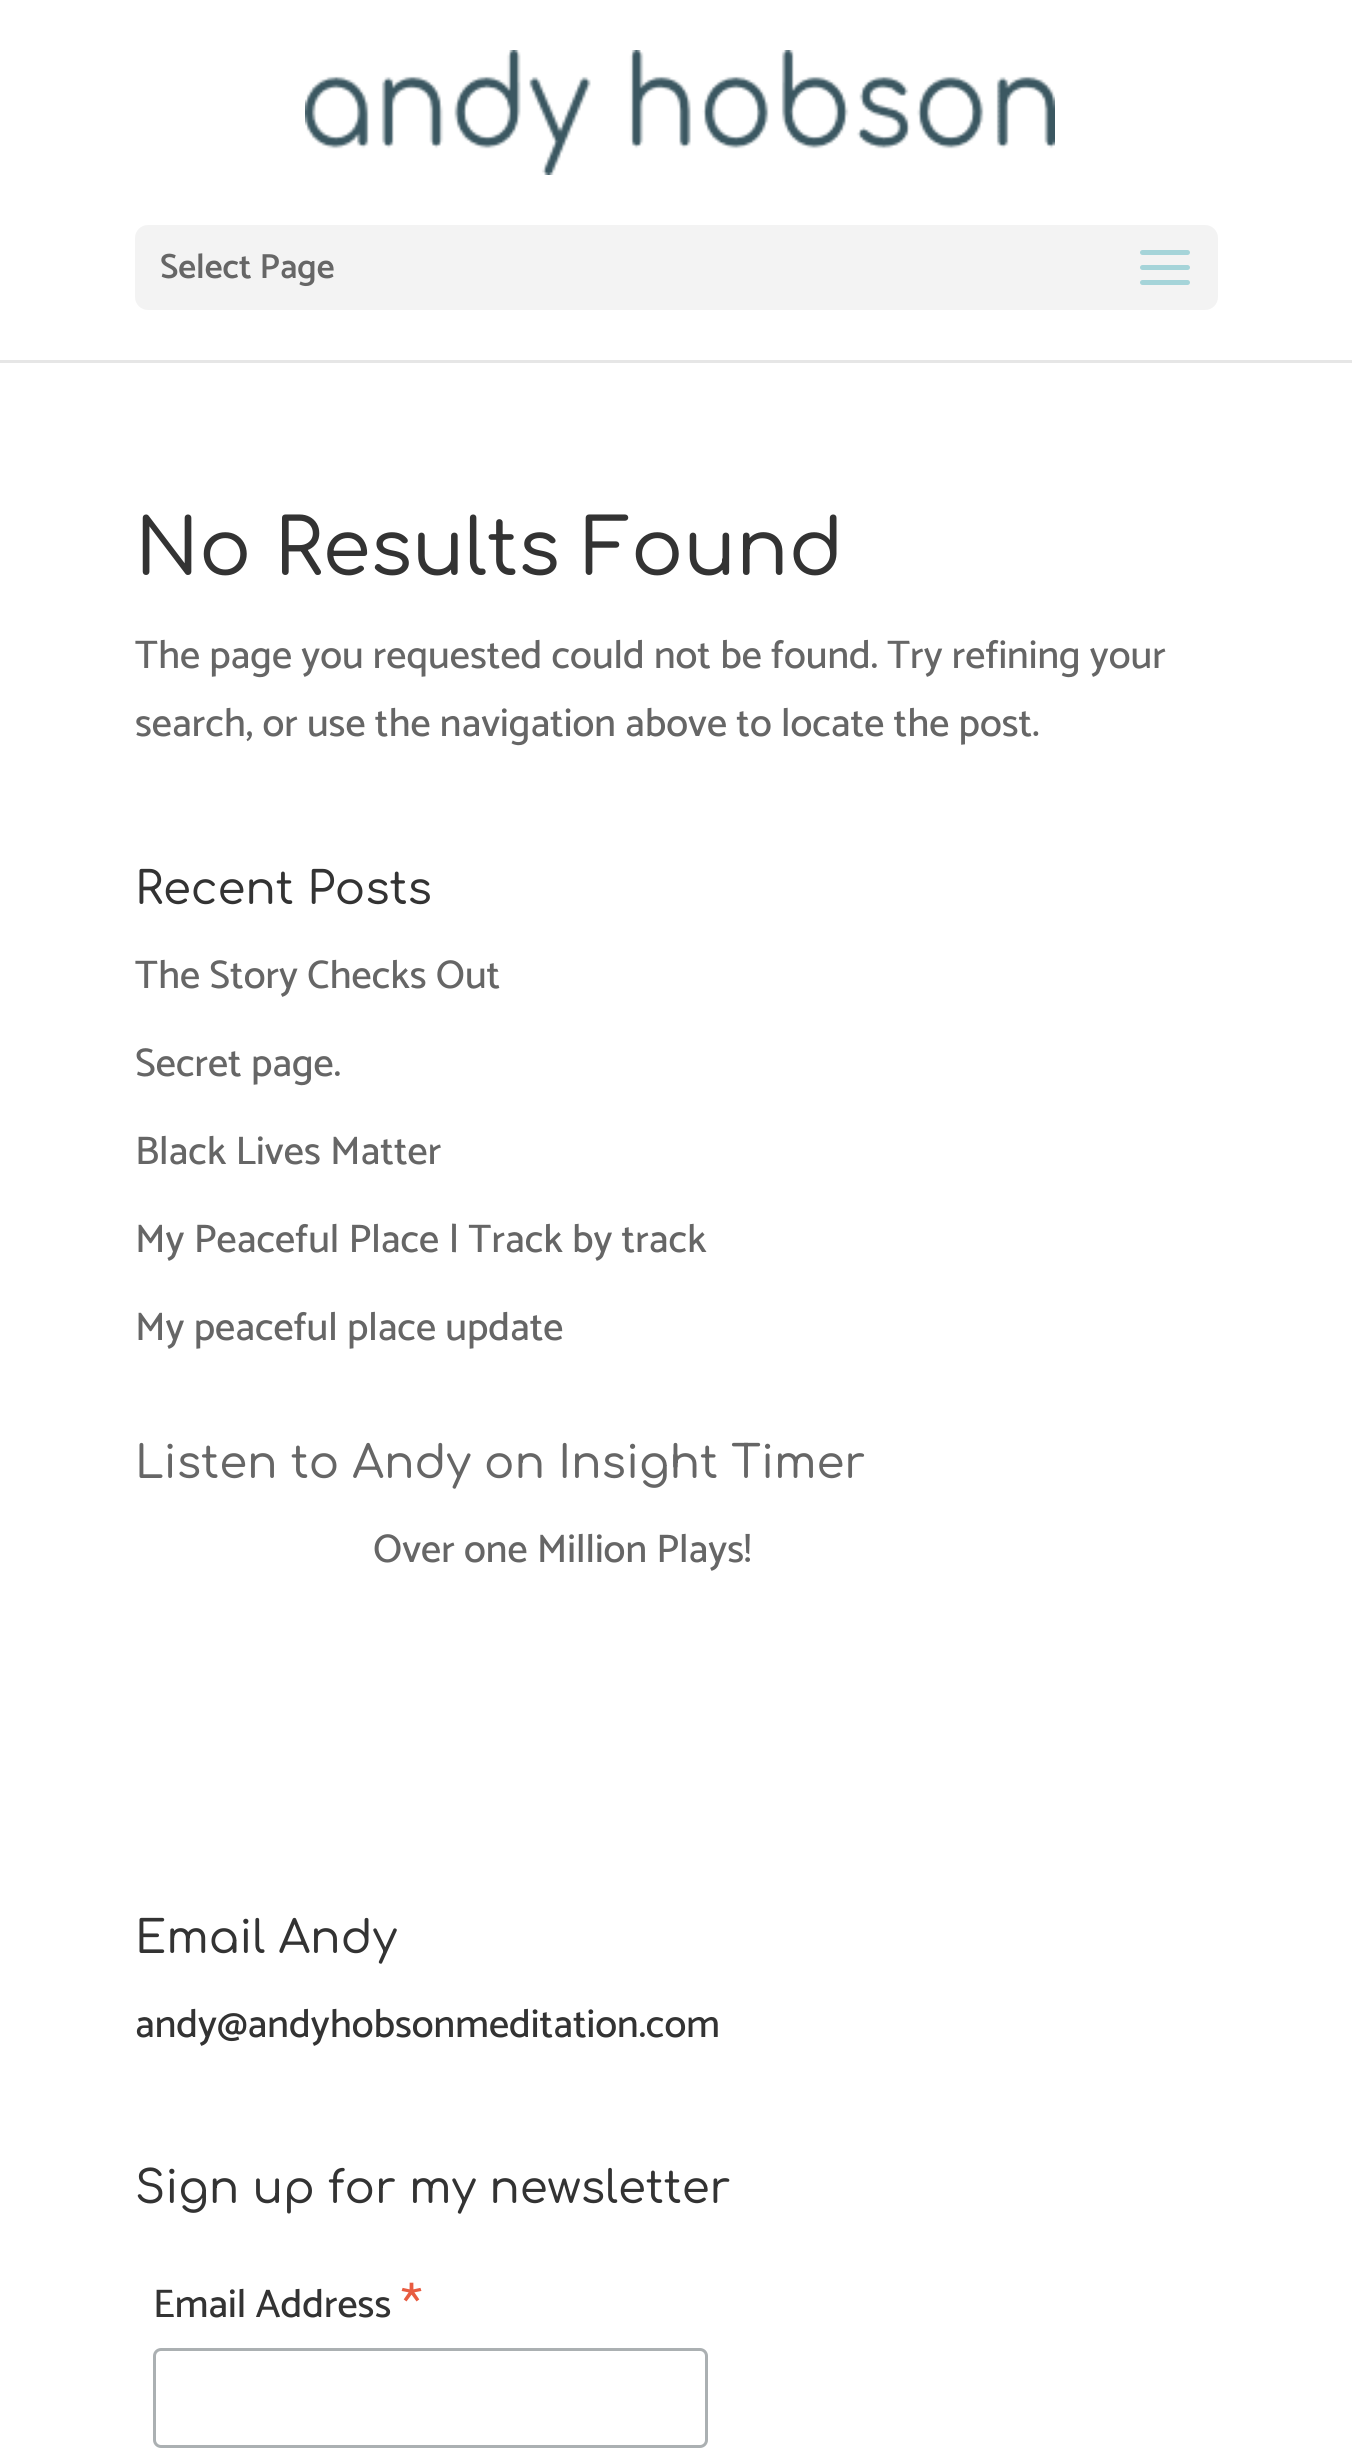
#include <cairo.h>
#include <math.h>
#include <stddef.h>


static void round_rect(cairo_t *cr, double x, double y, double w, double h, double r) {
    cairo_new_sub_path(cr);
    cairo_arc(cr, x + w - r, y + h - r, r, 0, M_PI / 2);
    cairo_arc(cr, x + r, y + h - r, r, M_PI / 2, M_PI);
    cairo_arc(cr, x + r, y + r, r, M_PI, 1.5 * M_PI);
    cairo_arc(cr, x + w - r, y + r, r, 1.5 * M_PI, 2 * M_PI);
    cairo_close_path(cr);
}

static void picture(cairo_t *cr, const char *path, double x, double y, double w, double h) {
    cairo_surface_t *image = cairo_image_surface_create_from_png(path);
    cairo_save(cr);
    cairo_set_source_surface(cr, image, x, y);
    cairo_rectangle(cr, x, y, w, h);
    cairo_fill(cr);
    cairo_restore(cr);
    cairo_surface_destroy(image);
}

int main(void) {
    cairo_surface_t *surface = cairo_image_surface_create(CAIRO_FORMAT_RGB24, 1352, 2463);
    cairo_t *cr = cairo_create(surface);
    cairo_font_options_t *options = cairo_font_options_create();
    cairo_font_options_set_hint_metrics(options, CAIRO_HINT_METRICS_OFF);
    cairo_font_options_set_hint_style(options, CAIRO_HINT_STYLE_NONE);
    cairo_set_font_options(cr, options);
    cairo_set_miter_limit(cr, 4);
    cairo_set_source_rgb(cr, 1, 1, 1);
    cairo_paint(cr);
    cairo_set_source_rgb(cr, 0.902, 0.902, 0.902);
    cairo_new_path(cr);
    cairo_move_to(cr, 0, 360);
    cairo_line_to(cr, 0, 363);
    cairo_line_to(cr, 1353, 363);
    cairo_line_to(cr, 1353, 3);
    cairo_line_to(cr, 1352, 3);
    cairo_line_to(cr, 1352, 360);
    cairo_close_path(cr);
    cairo_fill(cr);
    picture(cr, "img1.png", 305, 50, 750, 125);
    cairo_set_source_rgb(cr, 0.953, 0.953, 0.953);
    round_rect(cr, 135, 225, 1083, 85, 13);
    cairo_fill(cr);
    cairo_select_font_face(cr, "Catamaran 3 Thin", CAIRO_FONT_SLANT_NORMAL, CAIRO_FONT_WEIGHT_NORMAL);
    cairo_set_font_size(cr, 35);
    cairo_set_source_rgb(cr, 0.4, 0.4, 0.4);
    cairo_move_to(cr, 160, 278);
    cairo_show_text(cr, "Select Page");
    picture(cr, "img2.png", 1140, 250, 50, 35);
    cairo_select_font_face(cr, "Comfortaa Medium", CAIRO_FONT_SLANT_NORMAL, CAIRO_FONT_WEIGHT_NORMAL);
    cairo_set_font_size(cr, 77.5);
    cairo_set_source_rgb(cr, 0.2, 0.2, 0.2);
    cairo_move_to(cr, 135, 575);
    cairo_show_text(cr, "No Results Found");
    cairo_select_font_face(cr, "Catamaran Thin", CAIRO_FONT_SLANT_NORMAL, CAIRO_FONT_WEIGHT_NORMAL);
    cairo_set_font_size(cr, 40);
    cairo_set_source_rgb(cr, 0.4, 0.4, 0.4);
    cairo_move_to(cr, 135, 668);
    cairo_show_text(cr, "The page you requested could not be found. Try refining your");
    cairo_move_to(cr, 135, 736);
    cairo_show_text(cr, "search, or use the navigation above to locate the post.");
    cairo_select_font_face(cr, "Comfortaa Medium", CAIRO_FONT_SLANT_NORMAL, CAIRO_FONT_WEIGHT_NORMAL);
    cairo_set_font_size(cr, 45);
    cairo_set_source_rgb(cr, 0.2, 0.2, 0.2);
    cairo_move_to(cr, 135, 904);
    cairo_show_text(cr, "Recent Posts");
    cairo_select_font_face(cr, "Catamaran Thin", CAIRO_FONT_SLANT_NORMAL, CAIRO_FONT_WEIGHT_NORMAL);
    cairo_set_font_size(cr, 40);
    cairo_set_source_rgb(cr, 0.4, 0.4, 0.4);
    cairo_move_to(cr, 135, 988);
    cairo_show_text(cr, "The Story Checks Out");
    cairo_move_to(cr, 135, 1076);
    cairo_show_text(cr, "Secret page.");
    cairo_move_to(cr, 135, 1164);
    cairo_show_text(cr, "Black Lives Matter");
    cairo_move_to(cr, 135, 1252);
    cairo_show_text(cr, "My Peaceful Place | Track by track");
    cairo_move_to(cr, 135, 1340);
    cairo_show_text(cr, "My peaceful place update");
    cairo_select_font_face(cr, "Comfortaa Medium", CAIRO_FONT_SLANT_NORMAL, CAIRO_FONT_WEIGHT_NORMAL);
    cairo_set_font_size(cr, 45);
    cairo_move_to(cr, 135, 1478);
    cairo_show_text(cr, "Listen to Andy on Insight Timer");
    cairo_select_font_face(cr, "Catamaran Thin", CAIRO_FONT_SLANT_NORMAL, CAIRO_FONT_WEIGHT_NORMAL);
    cairo_set_font_size(cr, 40);
    cairo_move_to(cr, 373, 1562);
    cairo_show_text(cr, "Over one Million Plays!");
    cairo_select_font_face(cr, "Comfortaa Medium", CAIRO_FONT_SLANT_NORMAL, CAIRO_FONT_WEIGHT_NORMAL);
    cairo_set_font_size(cr, 45);
    cairo_set_source_rgb(cr, 0.2, 0.2, 0.2);
    cairo_move_to(cr, 135, 1953);
    cairo_show_text(cr, "Email Andy");
    cairo_select_font_face(cr, "Catamaran Thin", CAIRO_FONT_SLANT_NORMAL, CAIRO_FONT_WEIGHT_NORMAL);
    cairo_set_font_size(cr, 40);
    cairo_move_to(cr, 135, 2037);
    cairo_show_text(cr, "andy@andyhobsonmeditation.com");
    cairo_select_font_face(cr, "Comfortaa Medium", CAIRO_FONT_SLANT_NORMAL, CAIRO_FONT_WEIGHT_NORMAL);
    cairo_set_font_size(cr, 45);
    cairo_move_to(cr, 135, 2203);
    cairo_show_text(cr, "Sign up for my newsletter");
    cairo_select_font_face(cr, "Catamaran Thin", CAIRO_FONT_SLANT_NORMAL, CAIRO_FONT_WEIGHT_NORMAL);
    cairo_set_font_size(cr, 40);
    cairo_move_to(cr, 153, 2317);
    cairo_show_text(cr, "Email Address");
    cairo_select_font_face(cr, "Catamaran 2 Thin", CAIRO_FONT_SLANT_NORMAL, CAIRO_FONT_WEIGHT_NORMAL);
    cairo_set_font_size(cr, 60);
    cairo_set_source_rgb(cr, 0.91, 0.361, 0.255);
    cairo_move_to(cr, 401, 2329);
    cairo_show_text(cr, "*");
    round_rect(cr, 154.5, 2349.5, 552, 97, 6.5);
    cairo_set_source_rgb(cr, 0.671, 0.69, 0.698);
    cairo_set_line_width(cr, 3);
    cairo_stroke(cr);
    cairo_surface_write_to_png(surface, "page.png");
    cairo_font_options_destroy(options);
    cairo_destroy(cr);
    cairo_surface_destroy(surface);
    return 0;
}
